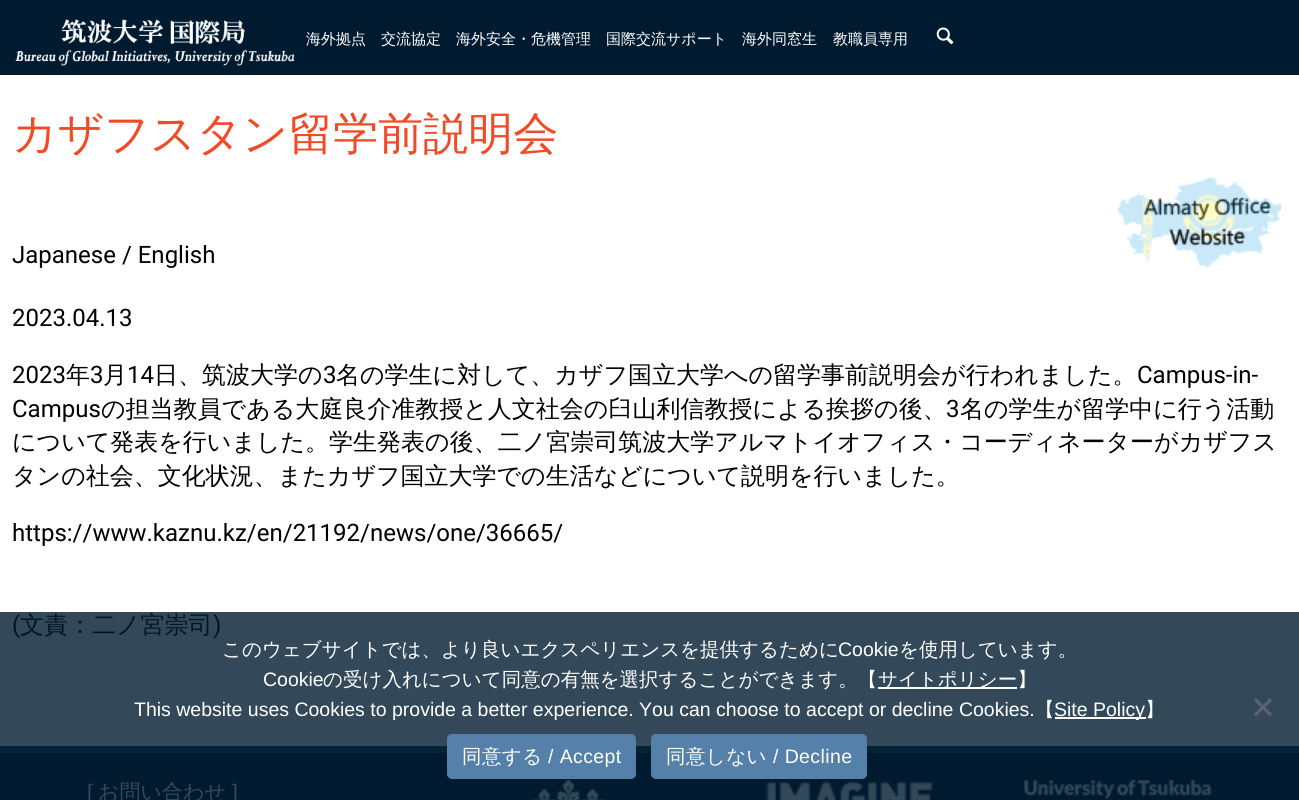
#include <cairo.h>
#include <math.h>
#include <stddef.h>


static void spaced_text(cairo_t *cr, double x, double y, const char *s, double letter, double word) {
    cairo_move_to(cr, x, y);
    while (*s) {
        char ch[5] = {0};
        int n = 0;
        do ch[n++] = *s++; while ((*s & 0xC0) == 0x80);
        cairo_show_text(cr, ch);
        cairo_rel_move_to(cr, letter + word * (*ch == ' '), 0);
    }
}

static void round_rect(cairo_t *cr, double x, double y, double w, double h, double r) {
    cairo_new_sub_path(cr);
    cairo_arc(cr, x + w - r, y + h - r, r, 0, M_PI / 2);
    cairo_arc(cr, x + r, y + h - r, r, M_PI / 2, M_PI);
    cairo_arc(cr, x + r, y + r, r, M_PI, 1.5 * M_PI);
    cairo_arc(cr, x + w - r, y + r, r, 1.5 * M_PI, 2 * M_PI);
    cairo_close_path(cr);
}

static void picture(cairo_t *cr, const char *path, double x, double y, double w, double h) {
    cairo_surface_t *image = cairo_image_surface_create_from_png(path);
    cairo_save(cr);
    cairo_set_source_surface(cr, image, x, y);
    cairo_rectangle(cr, x, y, w, h);
    cairo_fill(cr);
    cairo_restore(cr);
    cairo_surface_destroy(image);
}

int main(void) {
    cairo_surface_t *surface = cairo_image_surface_create(CAIRO_FORMAT_RGB24, 1299, 800);
    cairo_t *cr = cairo_create(surface);
    cairo_font_options_t *options = cairo_font_options_create();
    cairo_font_options_set_hint_metrics(options, CAIRO_HINT_METRICS_OFF);
    cairo_font_options_set_hint_style(options, CAIRO_HINT_STYLE_NONE);
    cairo_set_font_options(cr, options);
    cairo_set_miter_limit(cr, 4);
    cairo_set_source_rgb(cr, 1, 1, 1);
    cairo_paint(cr);
    cairo_set_source_rgb(cr, 0.2, 0.286, 0.349);
    cairo_rectangle(cr, 0, 612, 1299, 134);
    cairo_fill(cr);
    cairo_set_source_rgb(cr, 0, 0.106, 0.188);
    cairo_rectangle(cr, 0, 0, 1299, 75);
    cairo_fill(cr);
    picture(cr, "img1.png", 15, 19, 280, 47);
    cairo_select_font_face(cr, "WenQuanYi Zen Hei Medium", CAIRO_FONT_SLANT_NORMAL, CAIRO_FONT_WEIGHT_NORMAL);
    cairo_set_font_size(cr, 15);
    cairo_set_source_rgb(cr, 1, 1, 1);
    cairo_move_to(cr, 306, 44);
    cairo_show_text(cr, "海外拠点");
    cairo_move_to(cr, 381, 44);
    cairo_show_text(cr, "交流協定");
    cairo_move_to(cr, 456, 44);
    cairo_show_text(cr, "海外安全・危機管理");
    cairo_move_to(cr, 606, 44);
    cairo_show_text(cr, "国際交流サポート");
    cairo_move_to(cr, 742, 44);
    cairo_show_text(cr, "海外同窓生");
    cairo_move_to(cr, 833, 44);
    cairo_show_text(cr, "教職員専用");
    picture(cr, "img2.png", 936, 27, 18, 18);
    cairo_set_font_size(cr, 45);
    cairo_set_source_rgb(cr, 0.945, 0.29, 0.145);
    cairo_move_to(cr, 12, 149);
    cairo_show_text(cr, "カザフスタン留学前説明会");
    cairo_select_font_face(cr, "Roboto", CAIRO_FONT_SLANT_NORMAL, CAIRO_FONT_WEIGHT_NORMAL);
    cairo_set_font_size(cr, 24);
    cairo_set_source_rgb(cr, 0, 0, 0);
    cairo_move_to(cr, 12, 263);
    cairo_show_text(cr, "Japanese / English");
    picture(cr, "img3.png", 1117, 177, 166, 92);
    cairo_move_to(cr, 12, 326);
    cairo_show_text(cr, "2023.04.13");
    cairo_move_to(cr, 12, 383);
    cairo_show_text(cr, "2023");
    cairo_select_font_face(cr, "WenQuanYi Zen Hei Medium", CAIRO_FONT_SLANT_NORMAL, CAIRO_FONT_WEIGHT_NORMAL);
    cairo_move_to(cr, 66, 383);
    cairo_show_text(cr, "年");
    cairo_select_font_face(cr, "Roboto", CAIRO_FONT_SLANT_NORMAL, CAIRO_FONT_WEIGHT_NORMAL);
    cairo_move_to(cr, 90, 383);
    cairo_show_text(cr, "3");
    cairo_select_font_face(cr, "WenQuanYi Zen Hei Medium", CAIRO_FONT_SLANT_NORMAL, CAIRO_FONT_WEIGHT_NORMAL);
    cairo_move_to(cr, 103, 383);
    cairo_show_text(cr, "月");
    cairo_select_font_face(cr, "Roboto", CAIRO_FONT_SLANT_NORMAL, CAIRO_FONT_WEIGHT_NORMAL);
    cairo_move_to(cr, 127, 383);
    cairo_show_text(cr, "14");
    cairo_select_font_face(cr, "WenQuanYi Zen Hei Medium", CAIRO_FONT_SLANT_NORMAL, CAIRO_FONT_WEIGHT_NORMAL);
    cairo_move_to(cr, 154, 383);
    cairo_show_text(cr, "日、筑波大学の");
    cairo_select_font_face(cr, "Roboto", CAIRO_FONT_SLANT_NORMAL, CAIRO_FONT_WEIGHT_NORMAL);
    cairo_move_to(cr, 323, 383);
    cairo_show_text(cr, "3");
    cairo_select_font_face(cr, "WenQuanYi Zen Hei Medium", CAIRO_FONT_SLANT_NORMAL, CAIRO_FONT_WEIGHT_NORMAL);
    cairo_move_to(cr, 336, 383);
    cairo_show_text(cr, "名の学生に対して、カザフ国立大学への留学事前説明会が行われました。");
    cairo_select_font_face(cr, "Roboto", CAIRO_FONT_SLANT_NORMAL, CAIRO_FONT_WEIGHT_NORMAL);
    cairo_move_to(cr, 1137, 383);
    cairo_show_text(cr, "Campus-in-");
    cairo_move_to(cr, 12, 417);
    cairo_show_text(cr, "Campus");
    cairo_select_font_face(cr, "WenQuanYi Zen Hei Medium", CAIRO_FONT_SLANT_NORMAL, CAIRO_FONT_WEIGHT_NORMAL);
    cairo_move_to(cr, 101, 417);
    cairo_show_text(cr, "の担当教員である大庭良介准教授と人文社会の臼山利信教授による挨拶の後、");
    cairo_select_font_face(cr, "Roboto", CAIRO_FONT_SLANT_NORMAL, CAIRO_FONT_WEIGHT_NORMAL);
    cairo_move_to(cr, 946, 417);
    cairo_show_text(cr, "3");
    cairo_select_font_face(cr, "WenQuanYi Zen Hei Medium", CAIRO_FONT_SLANT_NORMAL, CAIRO_FONT_WEIGHT_NORMAL);
    cairo_move_to(cr, 960, 417);
    cairo_show_text(cr, "名の学生が留学中に行う活動");
    cairo_move_to(cr, 12, 450);
    cairo_show_text(cr, "について発表を行いました。学生発表の後、二ノ宮崇司筑波大学アルマトイオフィス・コーディネーターがカザフス");
    cairo_move_to(cr, 12, 484);
    cairo_show_text(cr, "タンの社会、文化状況、またカザフ国立大学での生活などについて説明を行いました。");
    cairo_select_font_face(cr, "Roboto", CAIRO_FONT_SLANT_NORMAL, CAIRO_FONT_WEIGHT_NORMAL);
    cairo_move_to(cr, 12, 541);
    cairo_show_text(cr, "https://www.kaznu.kz/en/21192/news/one/36665/");
    cairo_set_source_rgb(cr, 0, 0.086, 0.149);
    cairo_move_to(cr, 12, 633);
    cairo_show_text(cr, "(");
    cairo_select_font_face(cr, "WenQuanYi Zen Hei Medium", CAIRO_FONT_SLANT_NORMAL, CAIRO_FONT_WEIGHT_NORMAL);
    cairo_move_to(cr, 20, 633);
    cairo_show_text(cr, "文責：二ノ宮崇司");
    cairo_select_font_face(cr, "Roboto", CAIRO_FONT_SLANT_NORMAL, CAIRO_FONT_WEIGHT_NORMAL);
    cairo_move_to(cr, 213, 633);
    cairo_show_text(cr, ")");
    cairo_set_source_rgb(cr, 0, 0.106, 0.188);
    cairo_rectangle(cr, 0, 753, 1299, 47);
    cairo_fill(cr);
    cairo_set_source_rgb(cr, 0.027, 0.133, 0.216);
    cairo_rectangle(cr, 0, 746, 1299, 7);
    cairo_fill(cr);
    cairo_select_font_face(cr, "Liberation Sans", CAIRO_FONT_SLANT_NORMAL, CAIRO_FONT_WEIGHT_NORMAL);
    cairo_set_font_size(cr, 21);
    cairo_set_source_rgb(cr, 0.2, 0.286, 0.349);
    cairo_move_to(cr, 87, 799);
    cairo_show_text(cr, "[");
    cairo_select_font_face(cr, "WenQuanYi Zen Hei Medium", CAIRO_FONT_SLANT_NORMAL, CAIRO_FONT_WEIGHT_NORMAL);
    cairo_move_to(cr, 98, 799);
    cairo_show_text(cr, "お問い合わせ");
    cairo_select_font_face(cr, "Liberation Sans", CAIRO_FONT_SLANT_NORMAL, CAIRO_FONT_WEIGHT_NORMAL);
    cairo_move_to(cr, 232, 799);
    cairo_show_text(cr, "]");
    picture(cr, "img4.png", 532, 780, 73, 20);
    picture(cr, "img5.png", 766, 781, 168, 19);
    picture(cr, "img6.png", 1024, 780, 188, 20);
    cairo_select_font_face(cr, "WenQuanYi Zen Hei Medium", CAIRO_FONT_SLANT_NORMAL, CAIRO_FONT_WEIGHT_NORMAL);
    cairo_set_font_size(cr, 19.5);
    cairo_set_source_rgb(cr, 1, 1, 1);
    cairo_move_to(cr, 222, 656);
    cairo_show_text(cr, "このウェブサイトでは、より良いエクスペリエンスを提供するために");
    cairo_select_font_face(cr, "Liberation Sans", CAIRO_FONT_SLANT_NORMAL, CAIRO_FONT_WEIGHT_NORMAL);
    cairo_move_to(cr, 838, 656);
    cairo_show_text(cr, "Cookie");
    cairo_select_font_face(cr, "WenQuanYi Zen Hei Medium", CAIRO_FONT_SLANT_NORMAL, CAIRO_FONT_WEIGHT_NORMAL);
    cairo_move_to(cr, 899, 656);
    cairo_show_text(cr, "を使用しています。");
    cairo_select_font_face(cr, "Liberation Sans", CAIRO_FONT_SLANT_NORMAL, CAIRO_FONT_WEIGHT_NORMAL);
    cairo_move_to(cr, 263, 686);
    cairo_show_text(cr, "Cookie");
    cairo_select_font_face(cr, "WenQuanYi Zen Hei Medium", CAIRO_FONT_SLANT_NORMAL, CAIRO_FONT_WEIGHT_NORMAL);
    cairo_move_to(cr, 323, 686);
    cairo_show_text(cr, "の受け入れについて同意の有無を選択することができます。【");
    cairo_rectangle(cr, 878, 687, 139, 2);
    cairo_fill(cr);
    cairo_move_to(cr, 878, 686);
    cairo_show_text(cr, "サイトポリシー】");
    cairo_select_font_face(cr, "Liberation Sans", CAIRO_FONT_SLANT_NORMAL, CAIRO_FONT_WEIGHT_NORMAL);
    cairo_move_to(cr, 134, 716);
    cairo_show_text(cr, "This website uses Cookies to provide a better experience. You can choose to accept or decline Cookies.");
    cairo_select_font_face(cr, "WenQuanYi Zen Hei Medium", CAIRO_FONT_SLANT_NORMAL, CAIRO_FONT_WEIGHT_NORMAL);
    cairo_move_to(cr, 1035, 716);
    cairo_show_text(cr, "【");
    cairo_rectangle(cr, 1055, 717, 91, 2);
    cairo_fill(cr);
    cairo_select_font_face(cr, "Liberation Sans", CAIRO_FONT_SLANT_NORMAL, CAIRO_FONT_WEIGHT_NORMAL);
    cairo_move_to(cr, 1054, 716);
    cairo_show_text(cr, "Site Policy");
    cairo_select_font_face(cr, "WenQuanYi Zen Hei Medium", CAIRO_FONT_SLANT_NORMAL, CAIRO_FONT_WEIGHT_NORMAL);
    cairo_move_to(cr, 1145, 716);
    cairo_show_text(cr, "】");
    cairo_set_source_rgb(cr, 0.353, 0.392, 0.427);
    cairo_new_path(cr);
    cairo_move_to(cr, 1270, 698);
    cairo_line_to(cr, 1272, 700.5);
    cairo_line_to(cr, 1256, 716.5);
    cairo_line_to(cr, 1254, 714);
    cairo_close_path(cr);
    cairo_fill(cr);
    cairo_new_path(cr);
    cairo_move_to(cr, 1254, 700.5);
    cairo_line_to(cr, 1256, 698);
    cairo_line_to(cr, 1272, 714);
    cairo_line_to(cr, 1270, 716.5);
    cairo_close_path(cr);
    cairo_fill(cr);
    cairo_set_source_rgb(cr, 0.333, 0.502, 0.667);
    round_rect(cr, 447, 734, 189, 45, 5);
    cairo_fill(cr);
    cairo_set_source_rgb(cr, 1, 1, 1);
    spaced_text(cr, 462, 763, "同意する", 0.4, 0);
    cairo_select_font_face(cr, "Liberation Sans", CAIRO_FONT_SLANT_NORMAL, CAIRO_FONT_WEIGHT_NORMAL);
    spaced_text(cr, 548, 763, "/ Accept", 0.4, 0);
    cairo_set_source_rgb(cr, 0.333, 0.502, 0.667);
    round_rect(cr, 651, 734, 216, 45, 5);
    cairo_fill(cr);
    cairo_select_font_face(cr, "WenQuanYi Zen Hei Medium", CAIRO_FONT_SLANT_NORMAL, CAIRO_FONT_WEIGHT_NORMAL);
    cairo_set_source_rgb(cr, 1, 1, 1);
    spaced_text(cr, 666, 763, "同意しない", 0.4, 0);
    cairo_select_font_face(cr, "Liberation Sans", CAIRO_FONT_SLANT_NORMAL, CAIRO_FONT_WEIGHT_NORMAL);
    spaced_text(cr, 773, 763, "/ Decline", 0.4, 0);
    cairo_surface_write_to_png(surface, "page.png");
    cairo_font_options_destroy(options);
    cairo_destroy(cr);
    cairo_surface_destroy(surface);
    return 0;
}
